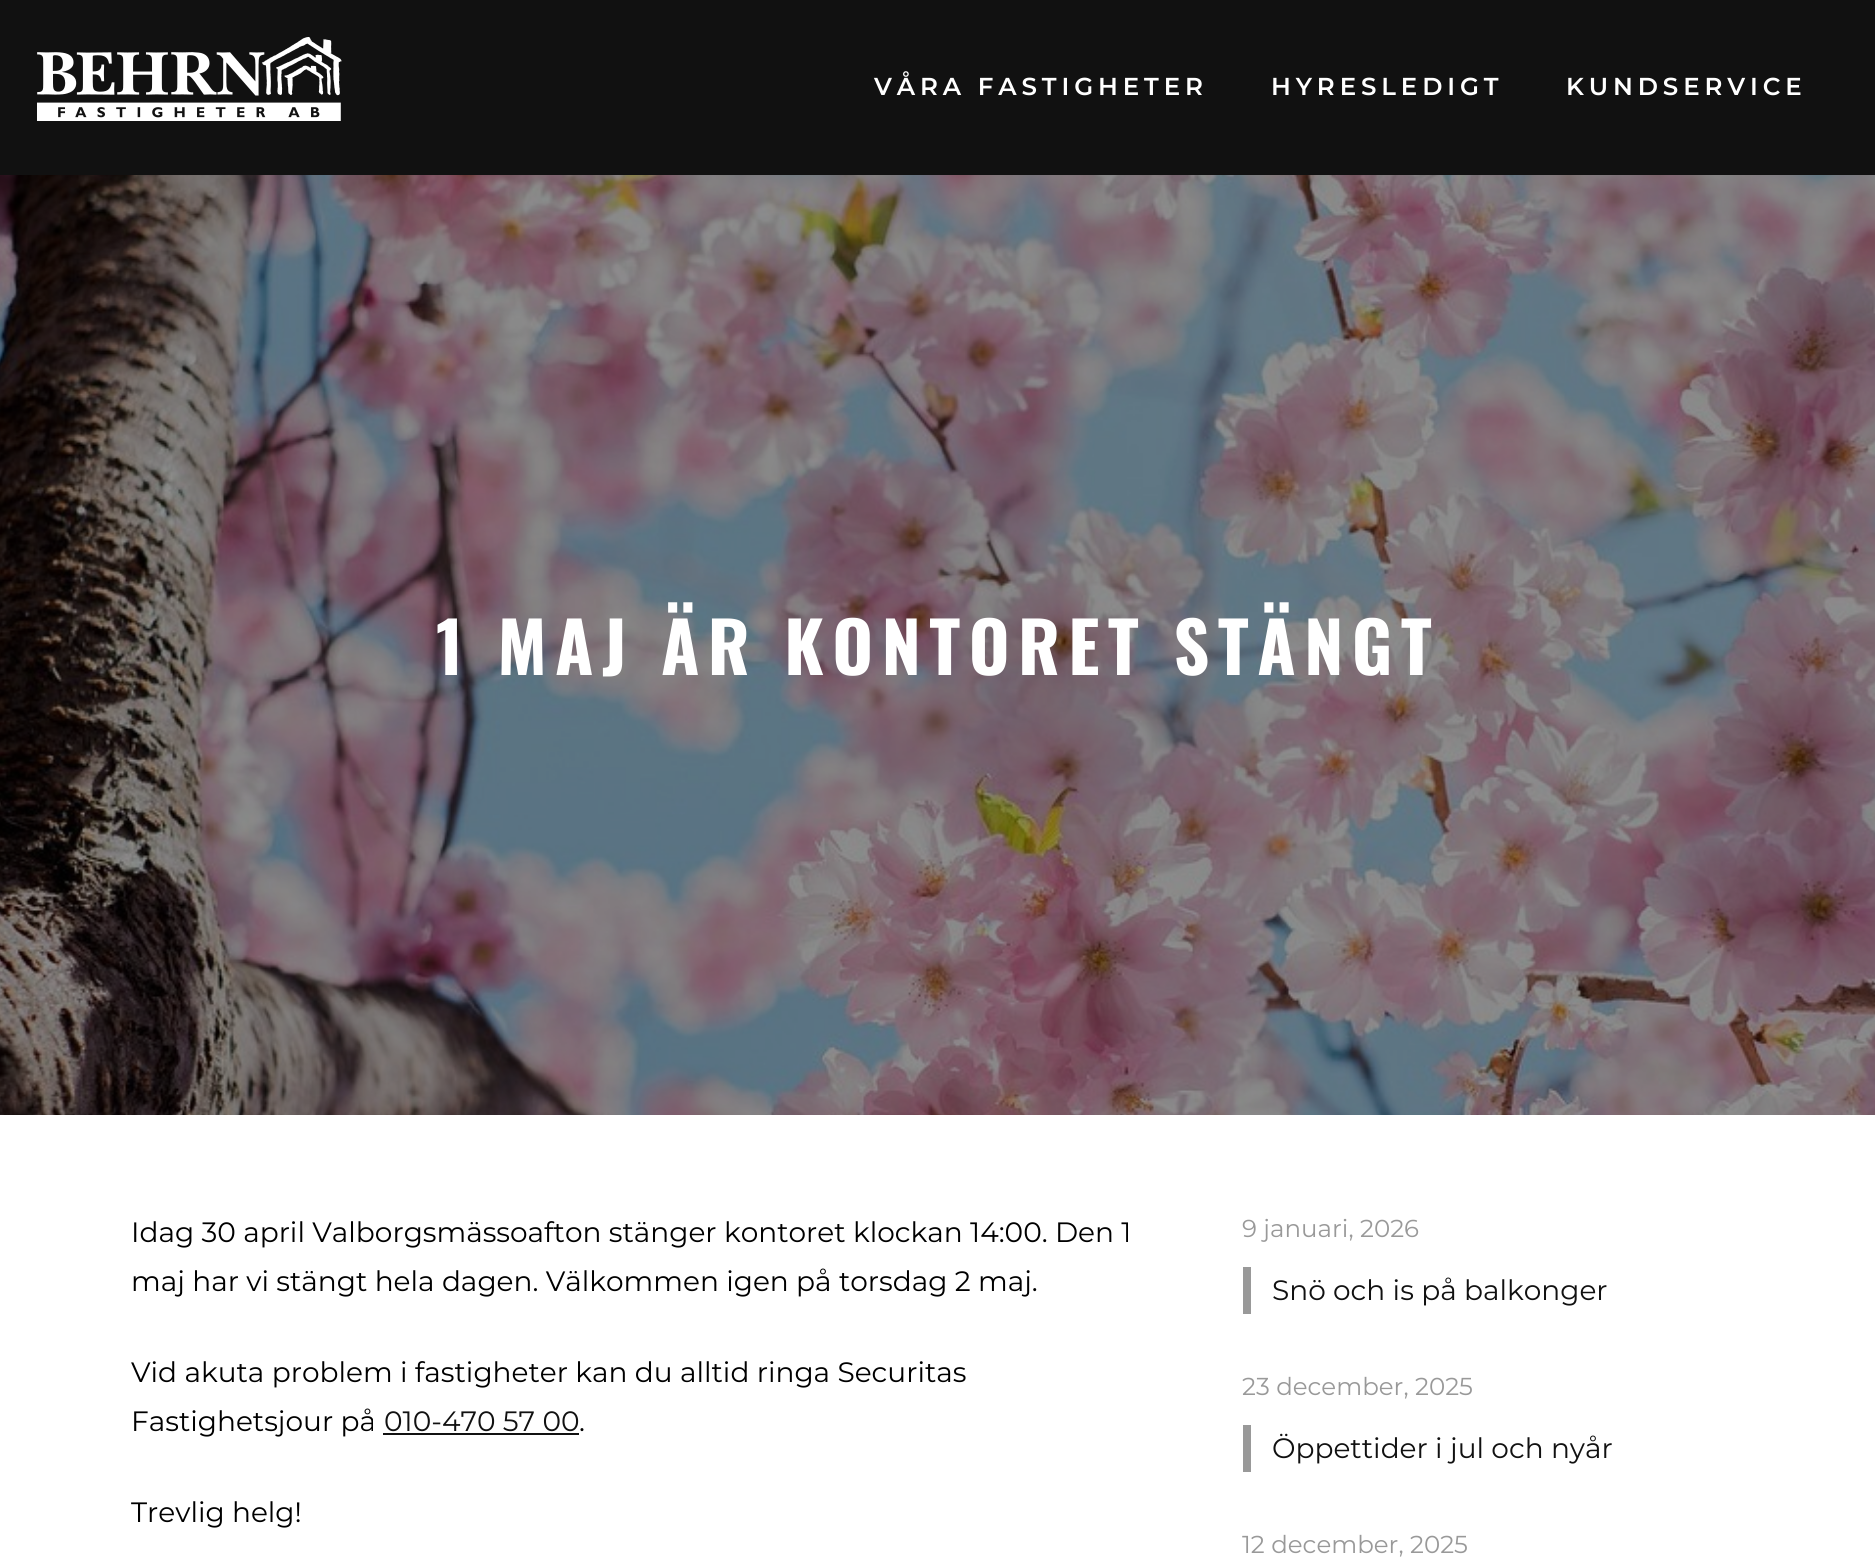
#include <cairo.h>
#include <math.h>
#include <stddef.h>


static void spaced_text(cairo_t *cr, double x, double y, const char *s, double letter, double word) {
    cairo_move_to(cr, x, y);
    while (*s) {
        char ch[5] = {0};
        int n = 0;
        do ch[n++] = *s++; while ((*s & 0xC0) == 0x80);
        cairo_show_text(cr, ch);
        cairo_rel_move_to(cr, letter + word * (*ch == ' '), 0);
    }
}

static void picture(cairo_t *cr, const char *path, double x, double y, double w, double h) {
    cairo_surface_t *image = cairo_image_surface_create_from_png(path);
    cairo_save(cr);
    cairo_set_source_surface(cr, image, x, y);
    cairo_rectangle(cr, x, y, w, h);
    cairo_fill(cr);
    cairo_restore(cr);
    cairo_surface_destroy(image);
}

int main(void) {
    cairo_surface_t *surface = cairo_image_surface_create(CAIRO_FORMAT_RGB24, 1875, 1565);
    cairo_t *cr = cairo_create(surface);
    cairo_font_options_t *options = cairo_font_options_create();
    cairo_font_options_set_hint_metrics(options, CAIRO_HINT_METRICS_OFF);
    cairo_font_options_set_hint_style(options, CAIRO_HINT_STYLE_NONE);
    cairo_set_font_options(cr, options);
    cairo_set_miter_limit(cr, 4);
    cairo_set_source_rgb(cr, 0.067, 0.067, 0.067);
    cairo_paint(cr);
    picture(cr, "img1.png", 37, 37, 305, 84);
    cairo_select_font_face(cr, "Montserrat SemiBold", CAIRO_FONT_SLANT_NORMAL, CAIRO_FONT_WEIGHT_NORMAL);
    cairo_set_font_size(cr, 24.5);
    cairo_set_source_rgb(cr, 1, 1, 1);
    spaced_text(cr, 874, 95, "VÅRA FASTIGHETER", 4.9, 0);
    spaced_text(cr, 1271, 95, "HYRESLEDIGT", 4.9, 0);
    spaced_text(cr, 1566, 95, "KUNDSERVICE", 4.9, 0);
    picture(cr, "img2.png", 0, 175, 1875, 940);
    cairo_select_font_face(cr, "Oswald", CAIRO_FONT_SLANT_NORMAL, CAIRO_FONT_WEIGHT_BOLD);
    cairo_set_font_size(cr, 69.8);
    spaced_text(cr, 436, 675, "1 MAJ ÄR KONTORET STÄNGT", 8.4, 0);
    cairo_rectangle(cr, 0, 1115, 1875, 450);
    cairo_fill(cr);
    cairo_select_font_face(cr, "Montserrat", CAIRO_FONT_SLANT_NORMAL, CAIRO_FONT_WEIGHT_NORMAL);
    cairo_set_font_size(cr, 28);
    cairo_set_source_rgb(cr, 0, 0, 0);
    cairo_move_to(cr, 131, 1242);
    cairo_show_text(cr, "Idag 30 april Valborgsmässoafton stänger kontoret klockan 14:00. Den 1");
    cairo_move_to(cr, 131, 1291);
    cairo_show_text(cr, "maj har vi stängt hela dagen. Välkommen igen på torsdag 2 maj.");
    cairo_move_to(cr, 131, 1382);
    cairo_show_text(cr, "Vid akuta problem i fastigheter kan du alltid ringa Securitas");
    cairo_move_to(cr, 131, 1431);
    cairo_show_text(cr, "Fastighetsjour på");
    cairo_set_source_rgb(cr, 0.067, 0.067, 0.067);
    cairo_move_to(cr, 384, 1431);
    cairo_show_text(cr, "010-470 57 00");
    cairo_rectangle(cr, 383, 1433, 196, 2);
    cairo_fill(cr);
    cairo_set_source_rgb(cr, 0, 0, 0);
    cairo_move_to(cr, 579, 1431);
    cairo_show_text(cr, ".");
    cairo_move_to(cr, 131, 1522);
    cairo_show_text(cr, "Trevlig helg!");
    cairo_set_font_size(cr, 24.5);
    cairo_set_source_rgb(cr, 0.6, 0.6, 0.6);
    cairo_move_to(cr, 1242, 1237);
    cairo_show_text(cr, "9 januari, 2026");
    cairo_rectangle(cr, 1243, 1267, 8, 47);
    cairo_fill(cr);
    cairo_set_font_size(cr, 28);
    cairo_set_source_rgb(cr, 0.067, 0.067, 0.067);
    cairo_move_to(cr, 1272, 1300);
    cairo_show_text(cr, "Snö och is på balkonger");
    cairo_set_font_size(cr, 24.5);
    cairo_set_source_rgb(cr, 0.6, 0.6, 0.6);
    cairo_move_to(cr, 1242, 1395);
    cairo_show_text(cr, "23 december, 2025");
    cairo_rectangle(cr, 1243, 1425, 8, 47);
    cairo_fill(cr);
    cairo_set_font_size(cr, 28);
    cairo_set_source_rgb(cr, 0.067, 0.067, 0.067);
    cairo_move_to(cr, 1272, 1458);
    cairo_show_text(cr, "Öppettider i jul och nyår");
    cairo_set_font_size(cr, 24.5);
    cairo_set_source_rgb(cr, 0.6, 0.6, 0.6);
    cairo_move_to(cr, 1242, 1553);
    cairo_show_text(cr, "12 december, 2025");
    cairo_surface_write_to_png(surface, "page.png");
    cairo_font_options_destroy(options);
    cairo_destroy(cr);
    cairo_surface_destroy(surface);
    return 0;
}
